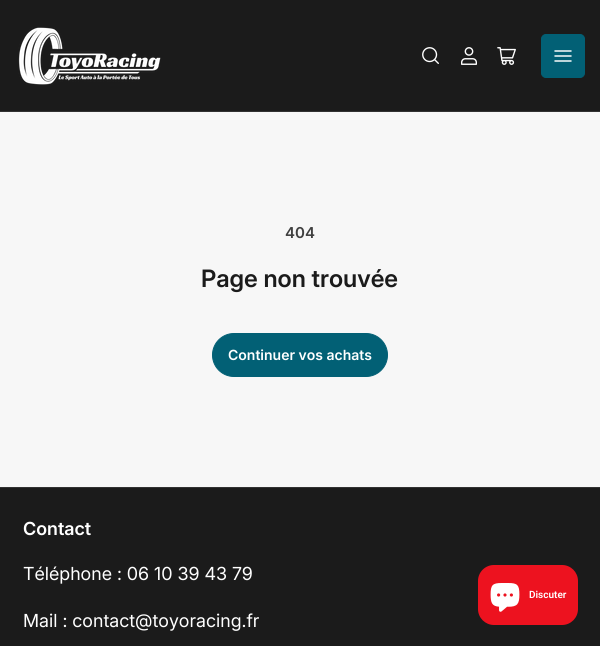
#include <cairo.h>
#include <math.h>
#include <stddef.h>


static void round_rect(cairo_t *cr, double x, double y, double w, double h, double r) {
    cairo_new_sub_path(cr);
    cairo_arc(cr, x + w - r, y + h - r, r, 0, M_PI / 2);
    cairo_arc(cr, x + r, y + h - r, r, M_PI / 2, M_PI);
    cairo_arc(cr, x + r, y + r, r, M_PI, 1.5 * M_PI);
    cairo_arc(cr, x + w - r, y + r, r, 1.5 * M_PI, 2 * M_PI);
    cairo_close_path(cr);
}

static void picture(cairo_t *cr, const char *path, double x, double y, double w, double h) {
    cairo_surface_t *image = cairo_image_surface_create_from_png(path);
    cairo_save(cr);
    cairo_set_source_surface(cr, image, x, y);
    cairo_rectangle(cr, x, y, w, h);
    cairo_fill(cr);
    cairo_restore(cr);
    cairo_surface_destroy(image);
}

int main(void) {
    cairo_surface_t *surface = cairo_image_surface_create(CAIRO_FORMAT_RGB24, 600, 646);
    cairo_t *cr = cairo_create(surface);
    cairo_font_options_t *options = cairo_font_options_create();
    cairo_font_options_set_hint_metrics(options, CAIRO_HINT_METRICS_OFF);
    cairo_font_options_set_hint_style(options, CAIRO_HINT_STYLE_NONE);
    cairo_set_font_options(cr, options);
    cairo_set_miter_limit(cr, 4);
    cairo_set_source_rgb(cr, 0.965, 0.965, 0.965);
    cairo_paint(cr);
    cairo_set_source_rgb(cr, 0.106, 0.106, 0.106);
    cairo_rectangle(cr, 0, 0, 600, 111);
    cairo_fill(cr);
    cairo_set_source_rgb(cr, 0.196, 0.196, 0.196);
    cairo_rectangle(cr, 0, 111, 600, 1);
    cairo_fill(cr);
    picture(cr, "img1.png", 18, 27, 143, 58);
    picture(cr, "img2.png", 422, 47, 17, 17);
    picture(cr, "img3.png", 461, 47, 16, 18);
    picture(cr, "img4.png", 497, 47, 19, 18);
    cairo_set_source_rgb(cr, 0.008, 0.376, 0.459);
    round_rect(cr, 541.5, 34.5, 43, 43, 4.5);
    cairo_fill_preserve(cr);
    cairo_set_line_width(cr, 1);
    cairo_stroke(cr);
    picture(cr, "img5.png", 554, 50, 18, 12);
    cairo_select_font_face(cr, "Inter SemiBold", CAIRO_FONT_SLANT_NORMAL, CAIRO_FONT_WEIGHT_NORMAL);
    cairo_set_font_size(cr, 15);
    cairo_set_source_rgb(cr, 0.251, 0.251, 0.251);
    cairo_move_to(cr, 285, 238);
    cairo_show_text(cr, "404");
    cairo_select_font_face(cr, "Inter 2 SemiBold", CAIRO_FONT_SLANT_NORMAL, CAIRO_FONT_WEIGHT_NORMAL);
    cairo_set_font_size(cr, 24);
    cairo_set_source_rgb(cr, 0.106, 0.106, 0.106);
    cairo_move_to(cr, 201, 287);
    cairo_show_text(cr, "Page non trouvée");
    cairo_set_source_rgb(cr, 0.008, 0.376, 0.459);
    round_rect(cr, 212.5, 333.5, 175, 43, 21.5);
    cairo_fill_preserve(cr);
    cairo_stroke(cr);
    cairo_select_font_face(cr, "Inter SemiBold", CAIRO_FONT_SLANT_NORMAL, CAIRO_FONT_WEIGHT_NORMAL);
    cairo_set_font_size(cr, 14);
    cairo_set_source_rgb(cr, 1, 1, 1);
    cairo_move_to(cr, 228, 360);
    cairo_show_text(cr, "Continuer vos achats");
    cairo_set_source_rgb(cr, 0.106, 0.106, 0.106);
    cairo_rectangle(cr, 0, 488, 600, 158);
    cairo_fill(cr);
    cairo_set_source_rgb(cr, 0.196, 0.196, 0.196);
    cairo_rectangle(cr, 0, 487, 600, 1);
    cairo_fill(cr);
    cairo_select_font_face(cr, "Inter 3 SemiBold", CAIRO_FONT_SLANT_NORMAL, CAIRO_FONT_WEIGHT_NORMAL);
    cairo_set_font_size(cr, 18);
    cairo_set_source_rgb(cr, 1, 1, 1);
    cairo_move_to(cr, 23, 535);
    cairo_show_text(cr, "Contact");
    cairo_select_font_face(cr, "Inter", CAIRO_FONT_SLANT_NORMAL, CAIRO_FONT_WEIGHT_NORMAL);
    cairo_move_to(cr, 23, 580);
    cairo_show_text(cr, "Téléphone : 06 10 39 43 79");
    cairo_move_to(cr, 23, 627);
    cairo_show_text(cr, "Mail : contact@toyoracing.fr");
    cairo_set_source_rgb(cr, 0.929, 0.071, 0.122);
    round_rect(cr, 478, 565, 100, 60, 16);
    cairo_fill(cr);
    picture(cr, "img6.png", 490, 583, 30, 29);
    cairo_select_font_face(cr, "Roboto SemiBold", CAIRO_FONT_SLANT_NORMAL, CAIRO_FONT_WEIGHT_NORMAL);
    cairo_set_font_size(cr, 10);
    cairo_set_source_rgb(cr, 1, 1, 1);
    cairo_move_to(cr, 529, 598);
    cairo_show_text(cr, "Discuter");
    cairo_surface_write_to_png(surface, "page.png");
    cairo_font_options_destroy(options);
    cairo_destroy(cr);
    cairo_surface_destroy(surface);
    return 0;
}
